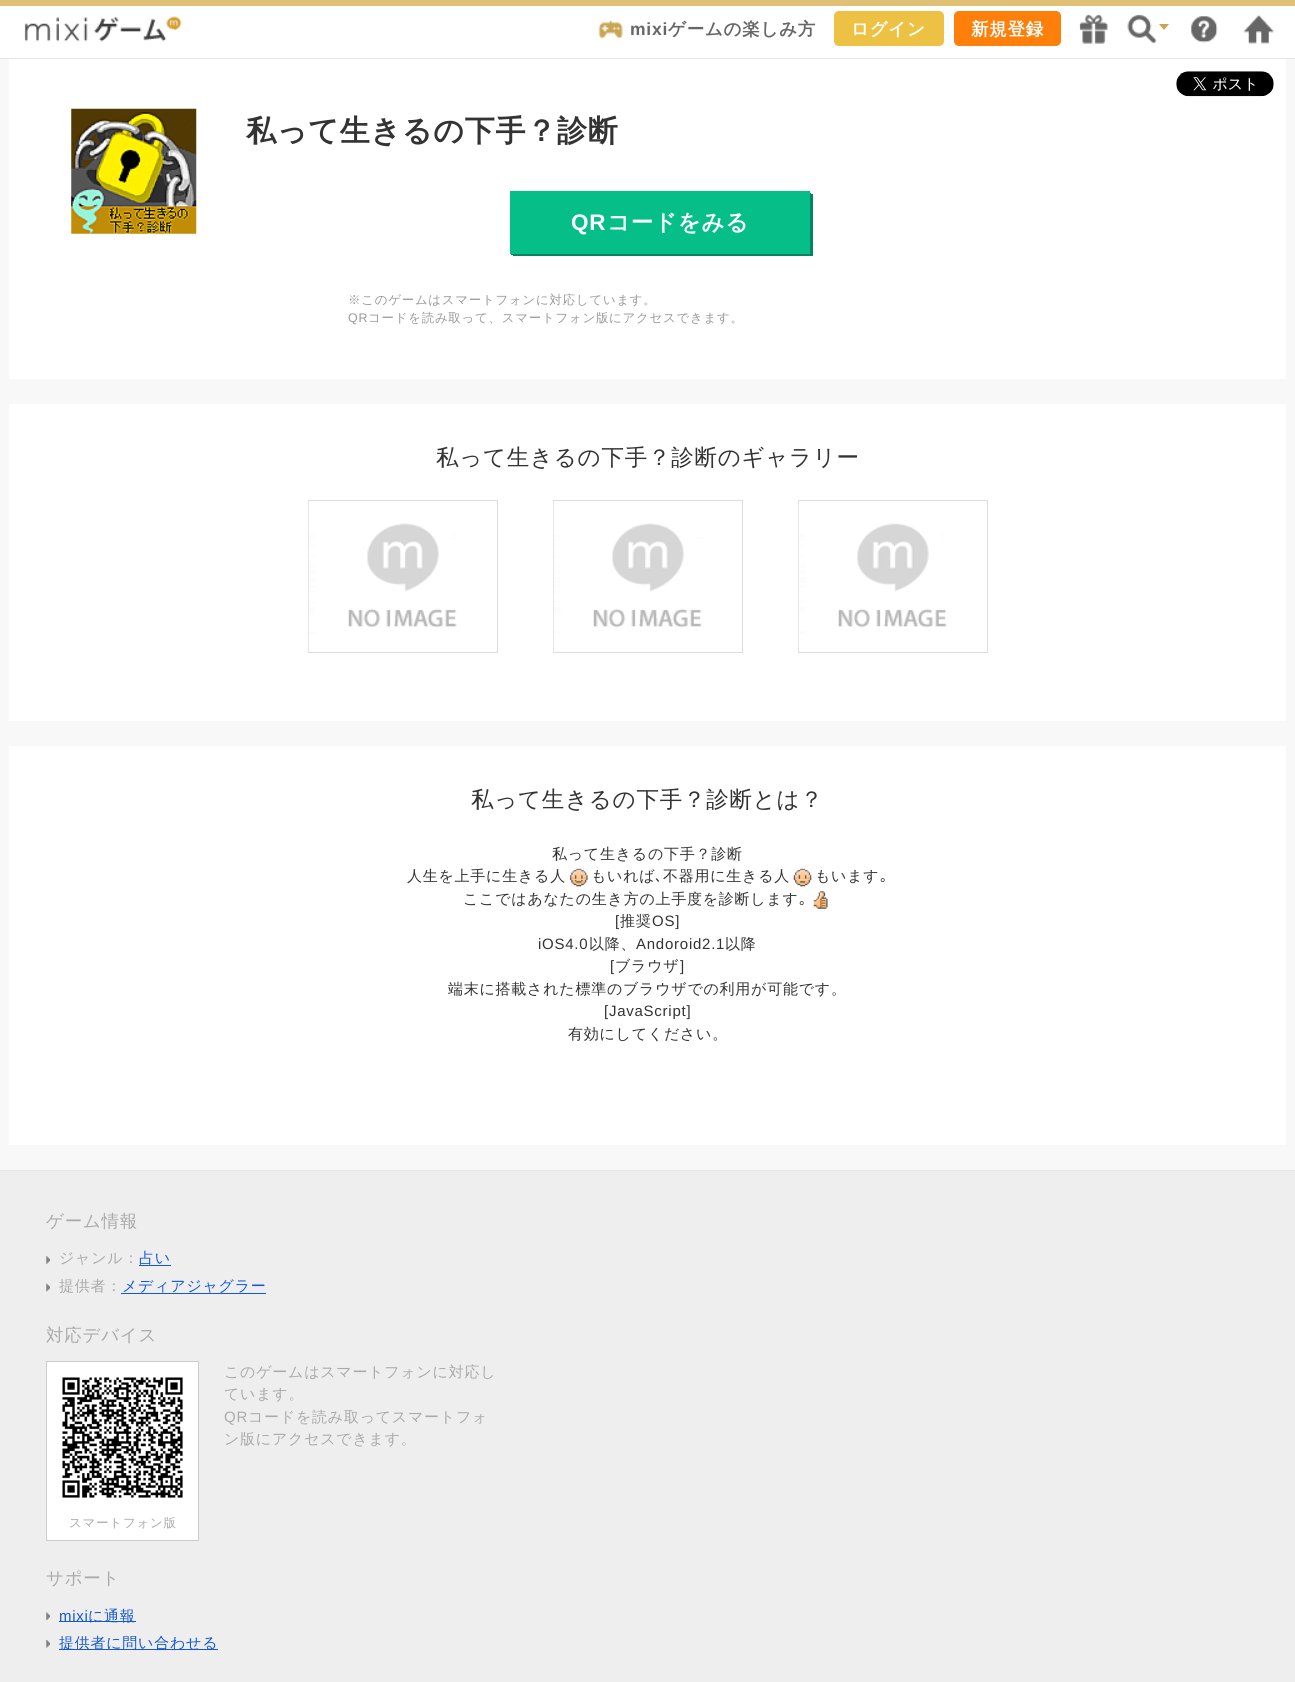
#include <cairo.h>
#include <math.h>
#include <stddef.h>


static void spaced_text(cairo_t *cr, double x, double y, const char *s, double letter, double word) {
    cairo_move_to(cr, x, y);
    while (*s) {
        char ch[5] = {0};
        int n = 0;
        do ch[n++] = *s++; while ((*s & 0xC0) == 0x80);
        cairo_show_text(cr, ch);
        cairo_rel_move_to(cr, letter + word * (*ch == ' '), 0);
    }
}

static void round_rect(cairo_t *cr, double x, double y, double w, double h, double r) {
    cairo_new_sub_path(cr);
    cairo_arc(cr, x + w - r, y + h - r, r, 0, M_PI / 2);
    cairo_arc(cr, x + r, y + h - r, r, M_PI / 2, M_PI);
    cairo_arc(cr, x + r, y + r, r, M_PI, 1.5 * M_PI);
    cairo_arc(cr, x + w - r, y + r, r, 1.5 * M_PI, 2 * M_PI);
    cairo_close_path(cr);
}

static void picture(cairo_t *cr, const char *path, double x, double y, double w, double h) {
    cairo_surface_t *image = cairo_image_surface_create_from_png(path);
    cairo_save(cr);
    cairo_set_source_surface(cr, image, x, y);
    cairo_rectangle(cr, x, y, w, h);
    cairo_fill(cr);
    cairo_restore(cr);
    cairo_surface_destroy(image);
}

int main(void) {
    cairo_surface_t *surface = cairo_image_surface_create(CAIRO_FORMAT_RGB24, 1295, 1682);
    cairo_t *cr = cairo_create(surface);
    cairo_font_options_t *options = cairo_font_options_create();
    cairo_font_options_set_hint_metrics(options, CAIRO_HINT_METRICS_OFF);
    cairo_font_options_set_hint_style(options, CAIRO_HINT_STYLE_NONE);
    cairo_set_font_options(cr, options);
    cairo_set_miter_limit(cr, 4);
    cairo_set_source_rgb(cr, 1, 1, 1);
    cairo_paint(cr);
    cairo_set_source_rgb(cr, 0.878, 0.753, 0.455);
    cairo_rectangle(cr, 0, 0, 1295, 6);
    cairo_fill(cr);
    cairo_set_source_rgb(cr, 0.894, 0.894, 0.894);
    cairo_rectangle(cr, 0, 58, 1295, 1);
    cairo_fill(cr);
    picture(cr, "img1.png", 24, 16, 158, 26);
    picture(cr, "img2.png", 598, 20, 25, 19);
    cairo_select_font_face(cr, "Liberation Sans", CAIRO_FONT_SLANT_NORMAL, CAIRO_FONT_WEIGHT_BOLD);
    cairo_set_font_size(cr, 17.5);
    cairo_set_source_rgb(cr, 0.4, 0.4, 0.4);
    spaced_text(cr, 630, 35, "mixi", 0.75, 0);
    cairo_select_font_face(cr, "WenQuanYi Zen Hei", CAIRO_FONT_SLANT_NORMAL, CAIRO_FONT_WEIGHT_BOLD);
    spaced_text(cr, 668, 35, "ゲームの楽しみ方", 0.75, 0);
    cairo_set_source_rgb(cr, 0.929, 0.757, 0.263);
    round_rect(cr, 834, 11, 110, 35, 5);
    cairo_fill(cr);
    cairo_set_source_rgb(cr, 1, 1, 1);
    spaced_text(cr, 851, 35, "ログイン", 0.75, 0);
    cairo_set_source_rgb(cr, 1, 0.498, 0.043);
    round_rect(cr, 954, 11, 107, 35, 5);
    cairo_fill(cr);
    cairo_set_source_rgb(cr, 1, 1, 1);
    spaced_text(cr, 971, 35, "新規登録", 0.75, 0);
    picture(cr, "img3.png", 1079, 14, 29, 30);
    picture(cr, "img4.png", 1127, 14, 30, 30);
    cairo_set_source_rgb(cr, 0.812, 0.639, 0.298);
    cairo_new_path(cr);
    cairo_move_to(cr, 1159, 24);
    cairo_line_to(cr, 1169, 24);
    cairo_line_to(cr, 1164, 30);
    cairo_close_path(cr);
    cairo_fill(cr);
    picture(cr, "img5.png", 1191, 16, 27, 27);
    picture(cr, "img6.png", 1243, 15, 31, 29);
    cairo_set_source_rgb(cr, 0.969, 0.969, 0.969);
    cairo_rectangle(cr, 0, 59, 1295, 1111);
    cairo_fill(cr);
    cairo_set_source_rgb(cr, 1, 1, 1);
    cairo_rectangle(cr, 9, 59, 1277, 320);
    cairo_fill(cr);
    picture(cr, "img7.png", 1176, 71, 98, 26);
    picture(cr, "img8.png", 71, 108, 126, 126);
    cairo_set_font_size(cr, 30);
    cairo_set_source_rgb(cr, 0.2, 0.2, 0.2);
    spaced_text(cr, 246, 141, "私って生きるの下手？診断", 0.75, 0);
    cairo_set_source_rgb(cr, 0.02, 0.522, 0.373);
    cairo_new_path(cr);
    cairo_move_to(cr, 513, 254);
    cairo_line_to(cr, 513, 256);
    cairo_line_to(cr, 813, 256);
    cairo_line_to(cr, 813, 194);
    cairo_line_to(cr, 810, 194);
    cairo_line_to(cr, 810, 254);
    cairo_close_path(cr);
    cairo_fill(cr);
    cairo_new_path(cr);
    cairo_move_to(cr, 511, 254);
    cairo_line_to(cr, 511, 255);
    cairo_line_to(cr, 811, 255);
    cairo_line_to(cr, 811, 193);
    cairo_line_to(cr, 810, 193);
    cairo_line_to(cr, 810, 254);
    cairo_close_path(cr);
    cairo_fill(cr);
    cairo_set_source_rgb(cr, 0.024, 0.745, 0.533);
    cairo_rectangle(cr, 510, 191, 300, 63);
    cairo_fill(cr);
    cairo_select_font_face(cr, "Liberation Sans", CAIRO_FONT_SLANT_NORMAL, CAIRO_FONT_WEIGHT_BOLD);
    cairo_set_font_size(cr, 22.5);
    cairo_set_source_rgb(cr, 1, 1, 1);
    spaced_text(cr, 571, 230, "QR", 0.75, 0);
    cairo_select_font_face(cr, "WenQuanYi Zen Hei", CAIRO_FONT_SLANT_NORMAL, CAIRO_FONT_WEIGHT_BOLD);
    spaced_text(cr, 607, 230, "コードをみる", 0.75, 0);
    cairo_select_font_face(cr, "WenQuanYi Zen Hei Medium", CAIRO_FONT_SLANT_NORMAL, CAIRO_FONT_WEIGHT_NORMAL);
    cairo_set_font_size(cr, 12.45);
    cairo_set_source_rgb(cr, 0.6, 0.6, 0.6);
    spaced_text(cr, 348, 304, "※このゲームはスマートフォンに対応しています。", 0.75, 0);
    cairo_select_font_face(cr, "Liberation Sans", CAIRO_FONT_SLANT_NORMAL, CAIRO_FONT_WEIGHT_NORMAL);
    spaced_text(cr, 348, 322, "QR", 0.75, 0);
    cairo_select_font_face(cr, "WenQuanYi Zen Hei Medium", CAIRO_FONT_SLANT_NORMAL, CAIRO_FONT_WEIGHT_NORMAL);
    spaced_text(cr, 368, 322, "コードを読み取って、スマートフォン版にアクセスできます。", 0.75, 0);
    cairo_set_source_rgb(cr, 1, 1, 1);
    cairo_rectangle(cr, 9, 404, 1277, 317);
    cairo_fill(cr);
    cairo_set_font_size(cr, 22.5);
    cairo_set_source_rgb(cr, 0.2, 0.2, 0.2);
    spaced_text(cr, 436, 465, "私って生きるの下手？診断のギャラリー", 0.75, 0);
    cairo_rectangle(cr, 308.5, 500.5, 189, 152);
    cairo_set_source_rgb(cr, 0.867, 0.867, 0.867);
    cairo_set_line_width(cr, 1);
    cairo_stroke(cr);
    cairo_rectangle(cr, 553.5, 500.5, 189, 152);
    cairo_stroke(cr);
    cairo_rectangle(cr, 798.5, 500.5, 189, 152);
    cairo_stroke(cr);
    picture(cr, "img9.png", 308, 501, 149, 150);
    picture(cr, "img10.png", 553, 501, 149, 150);
    picture(cr, "img11.png", 798, 501, 149, 150);
    cairo_set_source_rgb(cr, 1, 1, 1);
    cairo_rectangle(cr, 9, 746, 1277, 399);
    cairo_fill(cr);
    cairo_set_source_rgb(cr, 0.2, 0.2, 0.2);
    spaced_text(cr, 471, 807, "私って生きるの下手？診断とは？", 0.75, 0);
    cairo_set_font_size(cr, 15);
    spaced_text(cr, 552, 859, "私って生きるの下手？診断", 0.75, 0);
    spaced_text(cr, 407, 881, "人生を上手に生きる人", 0.75, 0);
    picture(cr, "img12.png", 569, 868, 19, 19);
    spaced_text(cr, 591, 881, "もいれば", 0.75, 0);
    cairo_select_font_face(cr, "IPAPGothic", CAIRO_FONT_SLANT_NORMAL, CAIRO_FONT_WEIGHT_NORMAL);
    spaced_text(cr, 655, 881, "､", 0.75, 0);
    cairo_select_font_face(cr, "WenQuanYi Zen Hei Medium", CAIRO_FONT_SLANT_NORMAL, CAIRO_FONT_WEIGHT_NORMAL);
    spaced_text(cr, 663, 881, "不器用に生きる人", 0.75, 0);
    picture(cr, "img13.png", 793, 868, 19, 19);
    spaced_text(cr, 815, 881, "もいます", 0.75, 0);
    cairo_select_font_face(cr, "IPAPGothic", CAIRO_FONT_SLANT_NORMAL, CAIRO_FONT_WEIGHT_NORMAL);
    spaced_text(cr, 880, 881, "｡", 0.75, 0);
    cairo_select_font_face(cr, "WenQuanYi Zen Hei Medium", CAIRO_FONT_SLANT_NORMAL, CAIRO_FONT_WEIGHT_NORMAL);
    spaced_text(cr, 463, 904, "ここではあなたの生き方の上手度を診断します", 0.75, 0);
    cairo_select_font_face(cr, "IPAPGothic", CAIRO_FONT_SLANT_NORMAL, CAIRO_FONT_WEIGHT_NORMAL);
    spaced_text(cr, 799, 904, "｡", 0.75, 0);
    picture(cr, "img14.png", 813, 891, 15, 18);
    cairo_select_font_face(cr, "Liberation Sans", CAIRO_FONT_SLANT_NORMAL, CAIRO_FONT_WEIGHT_NORMAL);
    spaced_text(cr, 615, 926, "[", 0.75, 0);
    cairo_select_font_face(cr, "WenQuanYi Zen Hei Medium", CAIRO_FONT_SLANT_NORMAL, CAIRO_FONT_WEIGHT_NORMAL);
    spaced_text(cr, 620, 926, "推奨", 0.75, 0);
    cairo_select_font_face(cr, "Liberation Sans", CAIRO_FONT_SLANT_NORMAL, CAIRO_FONT_WEIGHT_NORMAL);
    spaced_text(cr, 652, 926, "OS]", 0.75, 0);
    spaced_text(cr, 538, 949, "iOS4.0", 0.75, 0);
    cairo_select_font_face(cr, "WenQuanYi Zen Hei Medium", CAIRO_FONT_SLANT_NORMAL, CAIRO_FONT_WEIGHT_NORMAL);
    spaced_text(cr, 589, 949, "以降、", 0.75, 0);
    cairo_select_font_face(cr, "Liberation Sans", CAIRO_FONT_SLANT_NORMAL, CAIRO_FONT_WEIGHT_NORMAL);
    spaced_text(cr, 636, 949, "Andoroid2.1", 0.75, 0);
    cairo_select_font_face(cr, "WenQuanYi Zen Hei Medium", CAIRO_FONT_SLANT_NORMAL, CAIRO_FONT_WEIGHT_NORMAL);
    spaced_text(cr, 725, 949, "以降", 0.75, 0);
    cairo_select_font_face(cr, "Liberation Sans", CAIRO_FONT_SLANT_NORMAL, CAIRO_FONT_WEIGHT_NORMAL);
    spaced_text(cr, 610, 971, "[", 0.75, 0);
    cairo_select_font_face(cr, "WenQuanYi Zen Hei Medium", CAIRO_FONT_SLANT_NORMAL, CAIRO_FONT_WEIGHT_NORMAL);
    spaced_text(cr, 615, 971, "ブラウザ", 0.75, 0);
    cairo_select_font_face(cr, "Liberation Sans", CAIRO_FONT_SLANT_NORMAL, CAIRO_FONT_WEIGHT_NORMAL);
    spaced_text(cr, 680, 971, "]", 0.75, 0);
    cairo_select_font_face(cr, "WenQuanYi Zen Hei Medium", CAIRO_FONT_SLANT_NORMAL, CAIRO_FONT_WEIGHT_NORMAL);
    spaced_text(cr, 448, 994, "端末に搭載された標準のブラウザでの利用が可能です。", 0.75, 0);
    cairo_select_font_face(cr, "Liberation Sans", CAIRO_FONT_SLANT_NORMAL, CAIRO_FONT_WEIGHT_NORMAL);
    spaced_text(cr, 604, 1016, "[JavaScript]", 0.75, 0);
    cairo_select_font_face(cr, "WenQuanYi Zen Hei Medium", CAIRO_FONT_SLANT_NORMAL, CAIRO_FONT_WEIGHT_NORMAL);
    spaced_text(cr, 568, 1039, "有効にしてください。", 0.75, 0);
    cairo_set_source_rgb(cr, 0.933, 0.933, 0.933);
    cairo_rectangle(cr, 0, 1171, 1295, 511);
    cairo_fill(cr);
    cairo_set_source_rgb(cr, 0.898, 0.898, 0.898);
    cairo_rectangle(cr, 0, 1170, 1295, 1);
    cairo_fill(cr);
    cairo_set_font_size(cr, 17.5);
    cairo_set_source_rgb(cr, 0.667, 0.667, 0.667);
    spaced_text(cr, 46, 1227, "ゲーム情報", 0.75, 0);
    picture(cr, "img15.png", 46, 1256, 4, 8);
    cairo_set_font_size(cr, 15);
    spaced_text(cr, 59, 1263, "ジャンル：", 0.75, 0);
    cairo_set_source_rgb(cr, 0.082, 0.345, 0.839);
    spaced_text(cr, 139, 1263, "占い", 0.75, 0);
    cairo_rectangle(cr, 139, 1265, 32, 1);
    cairo_fill(cr);
    picture(cr, "img16.png", 46, 1283, 4, 9);
    cairo_set_source_rgb(cr, 0.667, 0.667, 0.667);
    spaced_text(cr, 59, 1291, "提供者：", 0.75, 0);
    cairo_set_source_rgb(cr, 0.082, 0.345, 0.839);
    spaced_text(cr, 122, 1291, "メディアジャグラー", 0.75, 0);
    cairo_rectangle(cr, 121, 1293, 145, 1);
    cairo_fill(cr);
    cairo_set_font_size(cr, 17.5);
    cairo_set_source_rgb(cr, 0.667, 0.667, 0.667);
    spaced_text(cr, 46, 1341, "対応デバイス", 0.75, 0);
    cairo_set_font_size(cr, 15);
    spaced_text(cr, 224, 1377, "このゲームはスマートフォンに対応し", 0.75, 0);
    spaced_text(cr, 224, 1399, "ています。", 0.75, 0);
    cairo_select_font_face(cr, "Liberation Sans", CAIRO_FONT_SLANT_NORMAL, CAIRO_FONT_WEIGHT_NORMAL);
    spaced_text(cr, 224, 1422, "QR", 0.75, 0);
    cairo_select_font_face(cr, "WenQuanYi Zen Hei Medium", CAIRO_FONT_SLANT_NORMAL, CAIRO_FONT_WEIGHT_NORMAL);
    spaced_text(cr, 248, 1422, "コードを読み取ってスマートフォ", 0.75, 0);
    spaced_text(cr, 224, 1444, "ン版にアクセスできます。", 0.75, 0);
    cairo_set_source_rgb(cr, 1, 1, 1);
    cairo_rectangle(cr, 46.5, 1361.5, 152, 179);
    cairo_fill_preserve(cr);
    cairo_set_source_rgb(cr, 0.8, 0.8, 0.8);
    cairo_stroke(cr);
    picture(cr, "img17.png", 62, 1377, 121, 121);
    cairo_set_font_size(cr, 12.5);
    cairo_set_source_rgb(cr, 0.667, 0.667, 0.667);
    spaced_text(cr, 69, 1527, "スマートフォン版", 0.75, 0);
    cairo_set_font_size(cr, 17.5);
    spaced_text(cr, 46, 1584, "サポート", 0.75, 0);
    picture(cr, "img18.png", 46, 1612, 4, 8);
    cairo_select_font_face(cr, "Liberation Sans", CAIRO_FONT_SLANT_NORMAL, CAIRO_FONT_WEIGHT_NORMAL);
    cairo_set_font_size(cr, 15);
    cairo_set_source_rgb(cr, 0.082, 0.345, 0.839);
    spaced_text(cr, 59, 1621, "mixi", 0.75, 0);
    cairo_rectangle(cr, 59, 1621, 77, 1);
    cairo_fill(cr);
    cairo_select_font_face(cr, "WenQuanYi Zen Hei Medium", CAIRO_FONT_SLANT_NORMAL, CAIRO_FONT_WEIGHT_NORMAL);
    spaced_text(cr, 88, 1621, "に通報", 0.75, 0);
    picture(cr, "img19.png", 46, 1640, 4, 8);
    cairo_rectangle(cr, 59, 1649, 159, 1);
    cairo_fill(cr);
    spaced_text(cr, 59, 1648, "提供者に問い合わせる", 0.75, 0);
    cairo_surface_write_to_png(surface, "page.png");
    cairo_font_options_destroy(options);
    cairo_destroy(cr);
    cairo_surface_destroy(surface);
    return 0;
}
